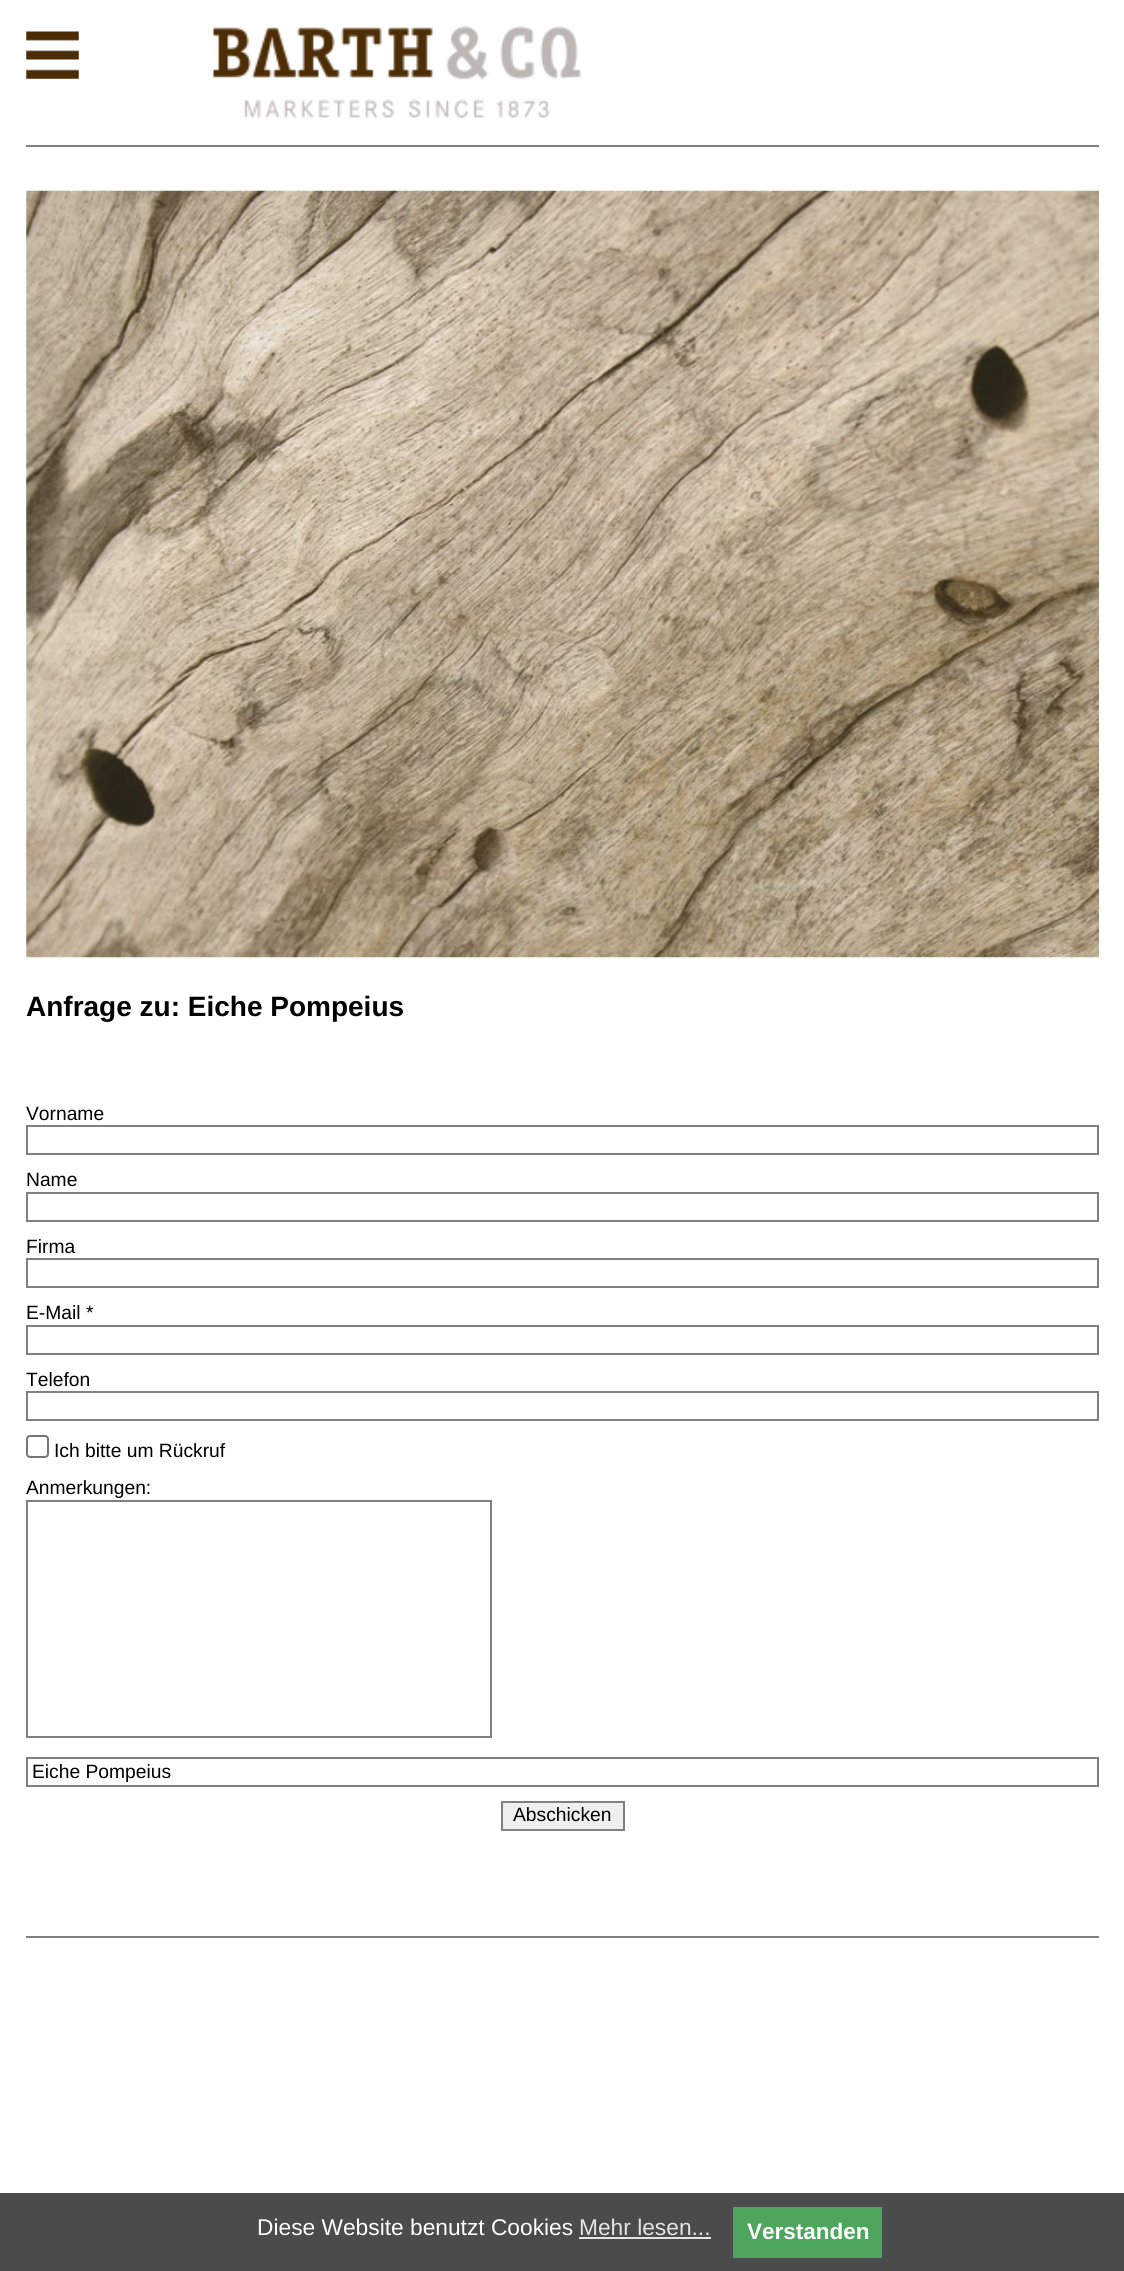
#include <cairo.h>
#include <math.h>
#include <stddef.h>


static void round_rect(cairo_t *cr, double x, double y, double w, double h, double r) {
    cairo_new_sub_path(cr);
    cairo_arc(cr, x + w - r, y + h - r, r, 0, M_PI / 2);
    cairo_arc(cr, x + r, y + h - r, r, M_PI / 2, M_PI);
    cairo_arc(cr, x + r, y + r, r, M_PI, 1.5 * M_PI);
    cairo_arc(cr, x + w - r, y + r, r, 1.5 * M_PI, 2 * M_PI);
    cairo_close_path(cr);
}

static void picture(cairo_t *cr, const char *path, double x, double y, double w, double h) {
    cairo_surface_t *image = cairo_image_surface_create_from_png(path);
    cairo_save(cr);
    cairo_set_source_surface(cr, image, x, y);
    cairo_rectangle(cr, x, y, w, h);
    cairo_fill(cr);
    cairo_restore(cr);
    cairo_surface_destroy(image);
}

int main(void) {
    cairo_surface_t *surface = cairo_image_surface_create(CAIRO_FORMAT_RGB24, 1124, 2271);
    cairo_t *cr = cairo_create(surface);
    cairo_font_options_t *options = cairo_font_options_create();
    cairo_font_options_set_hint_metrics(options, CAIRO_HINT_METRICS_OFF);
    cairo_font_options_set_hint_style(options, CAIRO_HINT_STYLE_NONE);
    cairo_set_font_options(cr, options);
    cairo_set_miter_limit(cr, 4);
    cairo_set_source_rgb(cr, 1, 1, 1);
    cairo_paint(cr);
    picture(cr, "img1.png", 26, 31, 53, 48);
    picture(cr, "img2.png", 213, 26, 368, 92);
    cairo_set_source_rgb(cr, 0.502, 0.502, 0.502);
    cairo_rectangle(cr, 26, 145, 1073, 2);
    cairo_fill(cr);
    cairo_rectangle(cr, 26, 1936, 1073, 2);
    cairo_fill(cr);
    picture(cr, "img3.png", 26, 190, 1073, 768);
    cairo_select_font_face(cr, "Liberation Sans", CAIRO_FONT_SLANT_NORMAL, CAIRO_FONT_WEIGHT_BOLD);
    cairo_set_font_size(cr, 28);
    cairo_set_source_rgb(cr, 0, 0, 0);
    cairo_move_to(cr, 26, 1016);
    cairo_show_text(cr, "Anfrage zu: Eiche Pompeius");
    cairo_select_font_face(cr, "Liberation Sans", CAIRO_FONT_SLANT_NORMAL, CAIRO_FONT_WEIGHT_NORMAL);
    cairo_set_font_size(cr, 19.25);
    cairo_move_to(cr, 26, 1120);
    cairo_show_text(cr, "Vorname");
    cairo_rectangle(cr, 27, 1126, 1071, 28);
    cairo_set_source_rgb(cr, 0.502, 0.502, 0.502);
    cairo_stroke(cr);
    cairo_set_source_rgb(cr, 0, 0, 0);
    cairo_move_to(cr, 26, 1186);
    cairo_show_text(cr, "Name");
    cairo_rectangle(cr, 27, 1193, 1071, 28);
    cairo_set_source_rgb(cr, 0.502, 0.502, 0.502);
    cairo_stroke(cr);
    cairo_set_source_rgb(cr, 0, 0, 0);
    cairo_move_to(cr, 26, 1253);
    cairo_show_text(cr, "Firma");
    cairo_rectangle(cr, 27, 1259, 1071, 28);
    cairo_set_source_rgb(cr, 0.502, 0.502, 0.502);
    cairo_stroke(cr);
    cairo_set_source_rgb(cr, 0, 0, 0);
    cairo_move_to(cr, 26, 1319);
    cairo_show_text(cr, "E-Mail *");
    cairo_rectangle(cr, 27, 1326, 1071, 28);
    cairo_set_source_rgb(cr, 0.502, 0.502, 0.502);
    cairo_stroke(cr);
    cairo_set_source_rgb(cr, 0, 0, 0);
    cairo_move_to(cr, 26, 1386);
    cairo_show_text(cr, "Telefon");
    cairo_rectangle(cr, 27, 1392, 1071, 28);
    cairo_set_source_rgb(cr, 0.502, 0.502, 0.502);
    cairo_stroke(cr);
    round_rect(cr, 27, 1436, 21, 21, 3);
    cairo_set_source_rgb(cr, 0.463, 0.463, 0.463);
    cairo_stroke(cr);
    cairo_set_source_rgb(cr, 0, 0, 0);
    cairo_move_to(cr, 54, 1457);
    cairo_show_text(cr, "Ich bitte um Rückruf");
    cairo_move_to(cr, 26, 1494);
    cairo_show_text(cr, "Anmerkungen:");
    cairo_rectangle(cr, 27, 1501, 464, 236);
    cairo_set_source_rgb(cr, 0.502, 0.502, 0.502);
    cairo_stroke(cr);
    cairo_rectangle(cr, 27, 1758, 1071, 28);
    cairo_stroke(cr);
    cairo_set_source_rgb(cr, 0, 0, 0);
    cairo_move_to(cr, 32, 1778);
    cairo_show_text(cr, "Eiche Pompeius");
    cairo_set_source_rgb(cr, 0.937, 0.937, 0.937);
    cairo_rectangle(cr, 502, 1802, 122, 28);
    cairo_fill_preserve(cr);
    cairo_set_source_rgb(cr, 0.502, 0.502, 0.502);
    cairo_stroke(cr);
    cairo_set_source_rgb(cr, 0, 0, 0);
    cairo_move_to(cr, 513, 1821);
    cairo_show_text(cr, "Abschicken");
    cairo_set_source_rgb(cr, 0.294, 0.294, 0.294);
    cairo_rectangle(cr, 0, 2193, 1124, 78);
    cairo_fill(cr);
    cairo_set_font_size(cr, 22.75);
    cairo_set_source_rgb(cr, 1, 1, 1);
    cairo_move_to(cr, 257, 2235);
    cairo_show_text(cr, "Diese Website benutzt Cookies");
    cairo_set_source_rgb(cr, 0.894, 0.894, 0.894);
    cairo_move_to(cr, 579, 2235);
    cairo_show_text(cr, "Mehr lesen...");
    cairo_rectangle(cr, 579, 2237, 132, 2);
    cairo_fill(cr);
    cairo_set_source_rgb(cr, 0.306, 0.647, 0.369);
    cairo_rectangle(cr, 733, 2207, 149, 51);
    cairo_fill(cr);
    cairo_select_font_face(cr, "Liberation Sans", CAIRO_FONT_SLANT_NORMAL, CAIRO_FONT_WEIGHT_BOLD);
    cairo_set_font_size(cr, 22.5);
    cairo_set_source_rgb(cr, 1, 1, 1);
    cairo_move_to(cr, 747, 2239);
    cairo_show_text(cr, "Verstanden");
    cairo_surface_write_to_png(surface, "page.png");
    cairo_font_options_destroy(options);
    cairo_destroy(cr);
    cairo_surface_destroy(surface);
    return 0;
}
